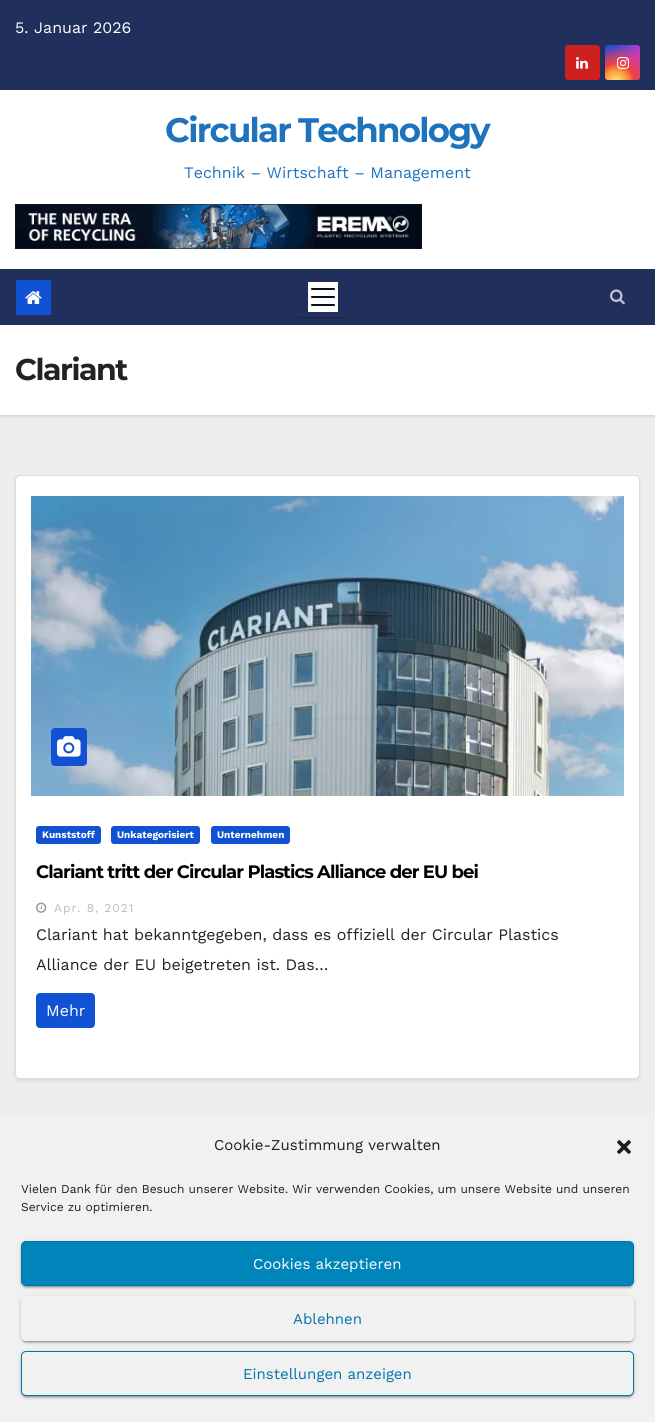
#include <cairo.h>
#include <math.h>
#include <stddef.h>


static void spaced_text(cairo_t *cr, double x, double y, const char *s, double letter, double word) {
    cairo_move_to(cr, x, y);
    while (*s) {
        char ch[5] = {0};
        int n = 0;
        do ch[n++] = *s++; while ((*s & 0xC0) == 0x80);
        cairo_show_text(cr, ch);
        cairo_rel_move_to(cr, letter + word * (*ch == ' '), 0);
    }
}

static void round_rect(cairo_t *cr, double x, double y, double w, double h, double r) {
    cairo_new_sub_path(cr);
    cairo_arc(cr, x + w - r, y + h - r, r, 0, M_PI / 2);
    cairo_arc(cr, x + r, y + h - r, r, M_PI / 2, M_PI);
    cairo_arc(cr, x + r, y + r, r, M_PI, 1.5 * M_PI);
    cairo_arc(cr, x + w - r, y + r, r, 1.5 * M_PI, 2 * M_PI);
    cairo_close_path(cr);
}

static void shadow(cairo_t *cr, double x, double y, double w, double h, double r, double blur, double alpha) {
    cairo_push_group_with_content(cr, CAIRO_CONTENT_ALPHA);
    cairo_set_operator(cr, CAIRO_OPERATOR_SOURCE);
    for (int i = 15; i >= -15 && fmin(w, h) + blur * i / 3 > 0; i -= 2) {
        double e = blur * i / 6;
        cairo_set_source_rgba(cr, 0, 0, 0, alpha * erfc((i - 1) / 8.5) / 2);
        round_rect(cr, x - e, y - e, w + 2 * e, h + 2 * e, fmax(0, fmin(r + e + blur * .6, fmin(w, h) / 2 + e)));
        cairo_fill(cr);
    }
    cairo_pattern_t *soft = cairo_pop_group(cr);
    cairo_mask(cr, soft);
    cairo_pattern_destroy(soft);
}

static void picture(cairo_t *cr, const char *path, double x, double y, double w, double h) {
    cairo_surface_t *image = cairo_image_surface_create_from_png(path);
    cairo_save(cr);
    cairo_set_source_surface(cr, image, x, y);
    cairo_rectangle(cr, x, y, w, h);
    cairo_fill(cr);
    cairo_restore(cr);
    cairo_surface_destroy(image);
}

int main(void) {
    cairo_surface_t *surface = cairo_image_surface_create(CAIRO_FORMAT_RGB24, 655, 1422);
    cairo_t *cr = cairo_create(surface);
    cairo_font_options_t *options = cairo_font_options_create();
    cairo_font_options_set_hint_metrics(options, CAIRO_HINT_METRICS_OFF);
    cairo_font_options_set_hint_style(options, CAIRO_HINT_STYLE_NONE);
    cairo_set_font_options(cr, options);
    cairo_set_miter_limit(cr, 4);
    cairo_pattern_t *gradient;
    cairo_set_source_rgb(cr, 0.933, 0.933, 0.933);
    cairo_paint(cr);
    cairo_set_source_rgb(cr, 0.125, 0.184, 0.357);
    cairo_rectangle(cr, 0, 0, 655, 90);
    cairo_fill(cr);
    cairo_select_font_face(cr, "Work Sans", CAIRO_FONT_SLANT_NORMAL, CAIRO_FONT_WEIGHT_NORMAL);
    cairo_set_font_size(cr, 16);
    cairo_set_source_rgb(cr, 1, 1, 1);
    cairo_move_to(cr, 15, 33);
    cairo_show_text(cr, "5. Januar 2026");
    cairo_set_source_rgb(cr, 0.804, 0.125, 0.122);
    round_rect(cr, 565, 45, 35, 35, 3);
    cairo_fill(cr);
    picture(cr, "img1.png", 576, 57, 12, 12);
    gradient = cairo_pattern_create_linear(605, 45, 640, 80);
    cairo_pattern_add_color_stop_rgba(gradient, 0.12, 0.137, 0.294, 0.843, 1);
    cairo_pattern_add_color_stop_rgba(gradient, 0.58, 0.765, 0.235, 0.745, 1);
    cairo_set_source(cr, gradient);
    cairo_pattern_destroy(gradient);
    round_rect(cr, 605, 45, 35, 35, 3);
    cairo_fill(cr);
    gradient = cairo_pattern_create_radial(616, 82, 0, 616, 82, 44);
    cairo_pattern_add_color_stop_rgba(gradient, 0, 1, 0.882, 0.49, 1);
    cairo_pattern_add_color_stop_rgba(gradient, 0.1, 1, 0.804, 0.412, 1);
    cairo_pattern_add_color_stop_rgba(gradient, 0.28, 0.98, 0.569, 0.216, 1);
    cairo_pattern_add_color_stop_rgba(gradient, 0.42, 0.922, 0.255, 0.255, 1);
    cairo_pattern_add_color_stop_rgba(gradient, 0.82, 0.922, 0.255, 0.255, 0);
    cairo_set_source(cr, gradient);
    cairo_pattern_destroy(gradient);
    round_rect(cr, 605, 45, 35, 35, 3);
    cairo_fill(cr);
    picture(cr, "img2.png", 617, 57, 12, 12);
    cairo_set_source_rgb(cr, 1, 1, 1);
    cairo_rectangle(cr, 0, 90, 655, 179);
    cairo_fill(cr);
    cairo_select_font_face(cr, "Montserrat", CAIRO_FONT_SLANT_NORMAL, CAIRO_FONT_WEIGHT_BOLD);
    cairo_set_font_size(cr, 34);
    cairo_set_source_rgb(cr, 0.118, 0.451, 0.745);
    spaced_text(cr, 165, 142, "Circular Technology", -1.75, 0);
    cairo_select_font_face(cr, "Work Sans", CAIRO_FONT_SLANT_NORMAL, CAIRO_FONT_WEIGHT_NORMAL);
    cairo_set_font_size(cr, 16);
    cairo_move_to(cr, 184, 178);
    cairo_show_text(cr, "Technik – Wirtschaft – Management");
    picture(cr, "img3.png", 15, 204, 407, 45);
    cairo_set_source_rgb(cr, 0, 0, 0);
    shadow(cr, 0, 326, 655, 90, 0, 1.5, 0.15);
    cairo_set_source_rgb(cr, 0.125, 0.184, 0.357);
    cairo_rectangle(cr, 0, 269, 655, 56);
    cairo_fill(cr);
    cairo_set_source_rgb(cr, 0.067, 0.318, 0.827);
    cairo_rectangle(cr, 16, 280, 35, 35);
    cairo_fill(cr);
    picture(cr, "img4.png", 25, 291, 17, 13);
    cairo_save(cr);
    cairo_set_fill_rule(cr, CAIRO_FILL_RULE_EVEN_ODD);
    cairo_new_path(cr);
    cairo_move_to(cr, 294, 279);
    cairo_line_to(cr, 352, 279);
    cairo_line_to(cr, 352, 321);
    cairo_line_to(cr, 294, 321);
    cairo_close_path(cr);
    cairo_move_to(cr, 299, 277);
    cairo_line_to(cr, 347, 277);
    cairo_curve_to(cr, 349, 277, 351, 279, 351, 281);
    cairo_line_to(cr, 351, 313);
    cairo_curve_to(cr, 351, 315, 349, 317, 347, 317);
    cairo_line_to(cr, 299, 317);
    cairo_curve_to(cr, 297, 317, 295, 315, 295, 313);
    cairo_line_to(cr, 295, 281);
    cairo_curve_to(cr, 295, 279, 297, 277, 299, 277);
    cairo_close_path(cr);
    cairo_clip(cr);
    cairo_set_source_rgb(cr, 0, 0, 0);
    shadow(cr, 297, 282, 52, 36, 2, 0.5, 0.2);
    cairo_restore(cr);
    cairo_set_source_rgb(cr, 1, 1, 1);
    cairo_rectangle(cr, 308, 282, 30, 30);
    cairo_fill(cr);
    picture(cr, "img5.png", 311, 288, 24, 18);
    picture(cr, "img6.png", 610, 289, 15, 16);
    cairo_rectangle(cr, 0, 325, 655, 90);
    cairo_fill(cr);
    cairo_select_font_face(cr, "Montserrat", CAIRO_FONT_SLANT_NORMAL, CAIRO_FONT_WEIGHT_BOLD);
    cairo_set_font_size(cr, 30);
    cairo_set_source_rgb(cr, 0.133, 0.133, 0.133);
    spaced_text(cr, 15, 380, "Clariant", -1.5, 0);
    cairo_set_source_rgb(cr, 0, 0, 0);
    shadow(cr, 15, 477, 625, 604, 5, 2, 0.08);
    cairo_set_source_rgb(cr, 1, 1, 1);
    round_rect(cr, 15.5, 475.5, 624, 603, 4.5);
    cairo_fill_preserve(cr);
    cairo_set_source_rgb(cr, 0.867, 0.863, 0.863);
    cairo_set_line_width(cr, 1);
    cairo_stroke(cr);
    picture(cr, "img7.png", 31, 496, 593, 300);
    cairo_set_source_rgb(cr, 0.067, 0.318, 0.827);
    round_rect(cr, 51, 728, 36, 38, 4);
    cairo_fill(cr);
    picture(cr, "img8.png", 57, 736, 24, 21);
    round_rect(cr, 36, 826, 65, 18, 3);
    cairo_fill(cr);
    cairo_select_font_face(cr, "Work Sans", CAIRO_FONT_SLANT_NORMAL, CAIRO_FONT_WEIGHT_BOLD);
    cairo_set_font_size(cr, 10);
    cairo_set_source_rgb(cr, 1, 1, 1);
    cairo_move_to(cr, 42, 838);
    cairo_show_text(cr, "Kunststoff");
    cairo_set_source_rgb(cr, 0.067, 0.318, 0.827);
    round_rect(cr, 111, 826, 89, 18, 3);
    cairo_fill(cr);
    cairo_set_source_rgb(cr, 1, 1, 1);
    cairo_move_to(cr, 117, 838);
    cairo_show_text(cr, "Unkategorisiert");
    cairo_set_source_rgb(cr, 0.067, 0.318, 0.827);
    round_rect(cr, 211, 826, 79, 18, 3);
    cairo_fill(cr);
    cairo_set_source_rgb(cr, 1, 1, 1);
    cairo_move_to(cr, 217, 838);
    cairo_show_text(cr, "Unternehmen");
    cairo_select_font_face(cr, "Montserrat", CAIRO_FONT_SLANT_NORMAL, CAIRO_FONT_WEIGHT_BOLD);
    cairo_set_font_size(cr, 18);
    cairo_set_source_rgb(cr, 0, 0, 0);
    spaced_text(cr, 36, 878, "Clariant tritt der Circular Plastics Alliance der EU bei", -0.9, 0);
    picture(cr, "img9.png", 36, 902, 11, 11);
    cairo_select_font_face(cr, "Work Sans", CAIRO_FONT_SLANT_NORMAL, CAIRO_FONT_WEIGHT_NORMAL);
    cairo_set_font_size(cr, 12);
    cairo_set_source_rgb(cr, 0.741, 0.741, 0.741);
    spaced_text(cr, 54, 912, "Apr. 8, 2021", 1, 0);
    cairo_set_font_size(cr, 16);
    cairo_set_source_rgb(cr, 0.133, 0.133, 0.133);
    cairo_move_to(cr, 36, 940);
    cairo_show_text(cr, "Clariant hat bekanntgegeben, dass es offiziell der Circular Plastics");
    cairo_move_to(cr, 36, 970);
    cairo_show_text(cr, "Alliance der EU beigetreten ist. Das…");
    cairo_set_source_rgb(cr, 0.067, 0.318, 0.827);
    round_rect(cr, 36, 993, 59, 35, 4);
    cairo_fill(cr);
    cairo_set_source_rgb(cr, 1, 1, 1);
    cairo_move_to(cr, 46, 1016);
    cairo_show_text(cr, "Mehr");
    cairo_set_source_rgb(cr, 0.945, 0.945, 0.945);
    cairo_rectangle(cr, 0, 1114, 655, 308);
    cairo_fill(cr);
    cairo_set_font_size(cr, 15);
    cairo_set_source_rgb(cr, 0.098, 0.118, 0.137);
    cairo_move_to(cr, 214, 1150);
    cairo_show_text(cr, "Cookie-Zustimmung verwalten");
    picture(cr, "img10.png", 617, 1140, 14, 14);
    cairo_set_font_size(cr, 12);
    cairo_move_to(cr, 21, 1193);
    cairo_show_text(cr, "Vielen Dank für den Besuch unserer Website. Wir verwenden Cookies, um unsere Website und unseren");
    cairo_move_to(cr, 21, 1211);
    cairo_show_text(cr, "Service zu optimieren.");
    cairo_set_source_rgb(cr, 0, 0, 0);
    shadow(cr, 21, 1242, 613, 45, 5, 2.5, 0.12);
    shadow(cr, 23, 1246, 609, 41, 3, 0.5, 0.2);
    shadow(cr, 21, 1243, 613, 45, 5, 1, 0.14);
    cairo_set_source_rgb(cr, 0, 0.522, 0.729);
    round_rect(cr, 21.5, 1241.5, 612, 44, 4.5);
    cairo_fill_preserve(cr);
    cairo_set_source_rgb(cr, 0, 0.451, 0.667);
    cairo_stroke(cr);
    cairo_set_font_size(cr, 15);
    cairo_set_source_rgb(cr, 1, 1, 1);
    cairo_move_to(cr, 253, 1269);
    cairo_show_text(cr, "Cookies akzeptieren");
    cairo_set_source_rgb(cr, 0, 0, 0);
    shadow(cr, 21, 1297, 613, 45, 5, 2.5, 0.12);
    shadow(cr, 23, 1301, 609, 41, 3, 0.5, 0.2);
    shadow(cr, 21, 1298, 613, 45, 5, 1, 0.14);
    cairo_set_source_rgb(cr, 0.945, 0.945, 0.945);
    round_rect(cr, 21.5, 1296.5, 612, 44, 4.5);
    cairo_fill_preserve(cr);
    cairo_stroke(cr);
    cairo_set_source_rgb(cr, 0, 0.451, 0.667);
    cairo_move_to(cr, 293, 1324);
    cairo_show_text(cr, "Ablehnen");
    cairo_set_source_rgb(cr, 0, 0, 0);
    shadow(cr, 21, 1352, 613, 45, 5, 2.5, 0.12);
    shadow(cr, 23, 1356, 609, 41, 3, 0.5, 0.2);
    shadow(cr, 21, 1353, 613, 45, 5, 1, 0.14);
    cairo_set_source_rgb(cr, 0.945, 0.945, 0.945);
    round_rect(cr, 21.5, 1351.5, 612, 44, 4.5);
    cairo_fill_preserve(cr);
    cairo_set_source_rgb(cr, 0, 0.451, 0.667);
    cairo_stroke(cr);
    cairo_move_to(cr, 243, 1379);
    cairo_show_text(cr, "Einstellungen anzeigen");
    cairo_surface_write_to_png(surface, "page.png");
    cairo_font_options_destroy(options);
    cairo_destroy(cr);
    cairo_surface_destroy(surface);
    return 0;
}
